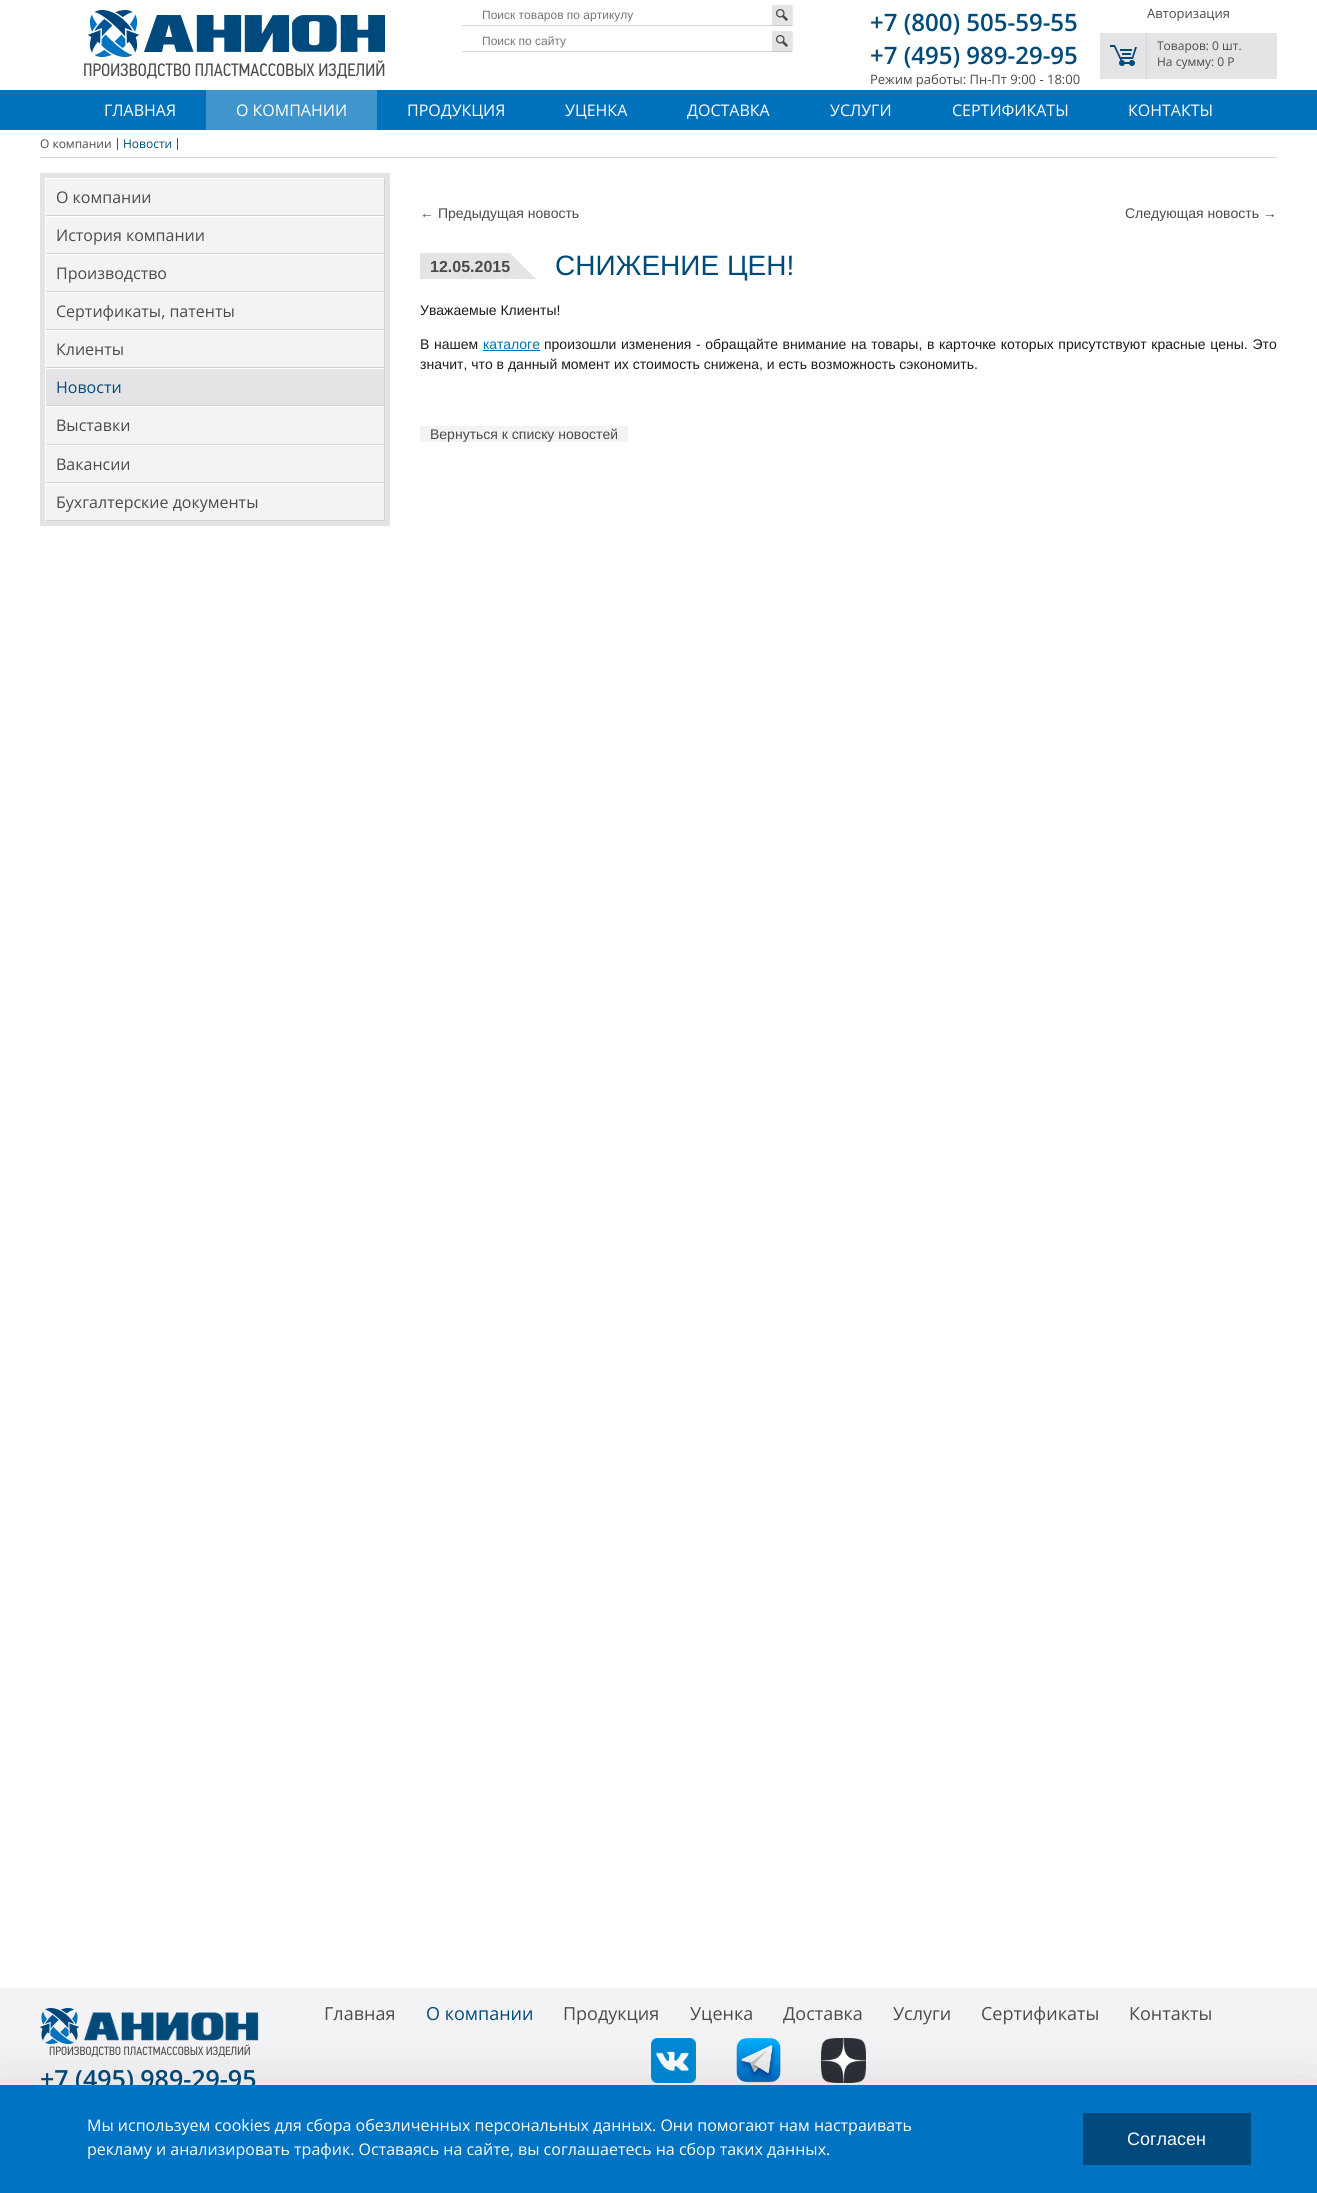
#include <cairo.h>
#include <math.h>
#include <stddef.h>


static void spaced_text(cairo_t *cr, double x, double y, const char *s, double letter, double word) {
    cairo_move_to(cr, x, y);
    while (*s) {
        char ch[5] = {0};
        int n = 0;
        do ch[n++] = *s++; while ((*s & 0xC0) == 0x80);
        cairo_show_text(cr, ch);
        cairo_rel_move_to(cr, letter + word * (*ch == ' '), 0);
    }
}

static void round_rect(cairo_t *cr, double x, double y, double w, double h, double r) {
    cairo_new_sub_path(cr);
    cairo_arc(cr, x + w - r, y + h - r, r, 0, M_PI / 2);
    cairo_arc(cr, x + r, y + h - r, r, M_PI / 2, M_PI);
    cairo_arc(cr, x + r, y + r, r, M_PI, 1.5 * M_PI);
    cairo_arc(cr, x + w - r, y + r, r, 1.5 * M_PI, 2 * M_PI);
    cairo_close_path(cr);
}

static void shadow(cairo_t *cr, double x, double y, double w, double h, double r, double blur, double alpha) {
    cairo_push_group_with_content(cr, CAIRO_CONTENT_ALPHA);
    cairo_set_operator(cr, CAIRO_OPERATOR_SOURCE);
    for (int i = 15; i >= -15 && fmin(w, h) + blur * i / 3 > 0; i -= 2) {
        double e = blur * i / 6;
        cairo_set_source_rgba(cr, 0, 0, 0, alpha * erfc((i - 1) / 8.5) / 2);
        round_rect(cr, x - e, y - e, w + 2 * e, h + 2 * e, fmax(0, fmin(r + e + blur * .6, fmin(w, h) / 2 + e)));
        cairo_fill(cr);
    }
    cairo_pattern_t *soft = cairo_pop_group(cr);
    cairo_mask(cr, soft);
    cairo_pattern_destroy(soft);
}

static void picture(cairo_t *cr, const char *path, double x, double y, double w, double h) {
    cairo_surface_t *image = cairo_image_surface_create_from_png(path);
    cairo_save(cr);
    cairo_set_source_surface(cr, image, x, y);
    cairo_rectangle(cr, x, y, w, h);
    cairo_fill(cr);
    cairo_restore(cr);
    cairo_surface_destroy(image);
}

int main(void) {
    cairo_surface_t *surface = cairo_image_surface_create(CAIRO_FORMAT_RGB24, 1317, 2193);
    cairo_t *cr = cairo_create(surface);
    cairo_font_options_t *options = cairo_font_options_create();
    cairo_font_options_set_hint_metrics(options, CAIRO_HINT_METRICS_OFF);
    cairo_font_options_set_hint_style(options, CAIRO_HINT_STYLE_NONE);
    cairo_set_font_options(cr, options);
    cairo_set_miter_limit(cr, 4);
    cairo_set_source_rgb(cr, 1, 1, 1);
    cairo_paint(cr);
    picture(cr, "img1.png", 88, 10, 297, 47);
    picture(cr, "img2.png", 84, 60, 301, 19);
    cairo_set_source_rgb(cr, 0.835, 0.835, 0.843);
    cairo_rectangle(cr, 462, 25, 330, 1);
    cairo_fill(cr);
    cairo_select_font_face(cr, "Liberation Sans", CAIRO_FONT_SLANT_NORMAL, CAIRO_FONT_WEIGHT_NORMAL);
    cairo_set_font_size(cr, 12);
    cairo_set_source_rgb(cr, 0.459, 0.459, 0.459);
    cairo_move_to(cr, 482, 19);
    cairo_show_text(cr, "Поиск товаров по артикулу");
    cairo_set_source_rgb(cr, 0.588, 0.588, 0.588);
    shadow(cr, 773, 6, 20, 20, 0, 0.5, 0.2);
    cairo_set_source_rgb(cr, 0.894, 0.894, 0.902);
    cairo_rectangle(cr, 772, 5, 20, 20);
    cairo_fill(cr);
    picture(cr, "img3.png", 776, 9, 12, 12);
    cairo_set_source_rgb(cr, 0.835, 0.835, 0.843);
    cairo_rectangle(cr, 462, 51, 330, 1);
    cairo_fill(cr);
    cairo_set_source_rgb(cr, 0.459, 0.459, 0.459);
    cairo_move_to(cr, 482, 45);
    cairo_show_text(cr, "Поиск по сайту");
    cairo_set_source_rgb(cr, 0.588, 0.588, 0.588);
    shadow(cr, 773, 32, 20, 20, 0, 0.5, 0.2);
    cairo_set_source_rgb(cr, 0.894, 0.894, 0.902);
    cairo_rectangle(cr, 772, 31, 20, 20);
    cairo_fill(cr);
    picture(cr, "img3.png", 776, 35, 12, 12);
    cairo_select_font_face(cr, "Open Sans SemiBold", CAIRO_FONT_SLANT_NORMAL, CAIRO_FONT_WEIGHT_NORMAL);
    cairo_set_font_size(cr, 24);
    cairo_set_source_rgb(cr, 0, 0.29, 0.478);
    cairo_move_to(cr, 870, 31);
    cairo_show_text(cr, "+7 (800) 505-59-55");
    cairo_move_to(cr, 870, 64);
    cairo_show_text(cr, "+7 (495) 989-29-95");
    cairo_select_font_face(cr, "Open Sans", CAIRO_FONT_SLANT_NORMAL, CAIRO_FONT_WEIGHT_NORMAL);
    cairo_set_font_size(cr, 13);
    cairo_set_source_rgb(cr, 0.294, 0.294, 0.294);
    cairo_move_to(cr, 870, 84);
    cairo_show_text(cr, "Режим работы: Пн-Пт 9:00 - 18:00");
    cairo_move_to(cr, 1147, 18);
    cairo_show_text(cr, "Авторизация");
    cairo_set_source_rgb(cr, 0.894, 0.894, 0.902);
    cairo_rectangle(cr, 1100, 33, 177, 46);
    cairo_fill(cr);
    picture(cr, "img4.png", 1110, 45, 27, 21);
    cairo_set_source_rgb(cr, 0.835, 0.835, 0.843);
    cairo_rectangle(cr, 1146, 33, 1, 46);
    cairo_fill(cr);
    cairo_set_font_size(cr, 12);
    cairo_set_source_rgb(cr, 0.294, 0.294, 0.294);
    cairo_move_to(cr, 1157, 50);
    cairo_show_text(cr, "Товаров: 0 шт.");
    cairo_move_to(cr, 1157, 66);
    cairo_show_text(cr, "На сумму: 0 P");
    cairo_set_source_rgb(cr, 0, 0.447, 0.737);
    cairo_rectangle(cr, 0, 90, 1317, 40);
    cairo_fill(cr);
    cairo_set_font_size(cr, 16);
    cairo_set_source_rgb(cr, 1, 1, 1);
    cairo_move_to(cr, 104, 116);
    cairo_show_text(cr, "ГЛАВНАЯ");
    cairo_set_source_rgb(cr, 0.251, 0.584, 0.804);
    cairo_rectangle(cr, 206, 90, 171, 40);
    cairo_fill(cr);
    cairo_set_source_rgb(cr, 1, 1, 1);
    cairo_move_to(cr, 236, 116);
    cairo_show_text(cr, "О КОМПАНИИ");
    cairo_move_to(cr, 407, 116);
    cairo_show_text(cr, "ПРОДУКЦИЯ");
    cairo_move_to(cr, 565, 116);
    cairo_show_text(cr, "УЦЕНКА");
    cairo_move_to(cr, 687, 116);
    cairo_show_text(cr, "ДОСТАВКА");
    cairo_move_to(cr, 830, 116);
    cairo_show_text(cr, "УСЛУГИ");
    cairo_move_to(cr, 952, 116);
    cairo_show_text(cr, "СЕРТИФИКАТЫ");
    cairo_move_to(cr, 1128, 116);
    cairo_show_text(cr, "КОНТАКТЫ");
    cairo_set_source_rgb(cr, 0.835, 0.835, 0.843);
    cairo_rectangle(cr, 40, 157, 1237, 1);
    cairo_fill(cr);
    cairo_set_source_rgb(cr, 0.294, 0.294, 0.294);
    cairo_rectangle(cr, 117, 138, 1, 12);
    cairo_fill(cr);
    cairo_set_font_size(cr, 12);
    cairo_move_to(cr, 40, 148);
    cairo_show_text(cr, "О компании");
    cairo_rectangle(cr, 177, 138, 1, 12);
    cairo_fill(cr);
    cairo_set_source_rgb(cr, 0, 0.29, 0.478);
    cairo_move_to(cr, 123, 148);
    cairo_show_text(cr, "Новости");
    cairo_set_source_rgb(cr, 0.894, 0.894, 0.902);
    cairo_rectangle(cr, 40, 173, 350, 353);
    cairo_fill(cr);
    cairo_set_source_rgb(cr, 0.953, 0.953, 0.961);
    cairo_rectangle(cr, 46, 179, 338, 36);
    cairo_fill(cr);
    cairo_set_source_rgb(cr, 1, 1, 1);
    cairo_rectangle(cr, 45, 178, 340, 1);
    cairo_fill(cr);
    cairo_set_source_rgb(cr, 0.824, 0.824, 0.831);
    cairo_rectangle(cr, 384, 178, 1, 38);
    cairo_fill(cr);
    cairo_rectangle(cr, 45, 215, 340, 1);
    cairo_fill(cr);
    cairo_set_source_rgb(cr, 1, 1, 1);
    cairo_rectangle(cr, 45, 178, 1, 38);
    cairo_fill(cr);
    cairo_set_font_size(cr, 16);
    cairo_set_source_rgb(cr, 0.294, 0.294, 0.294);
    cairo_move_to(cr, 56, 203);
    cairo_show_text(cr, "О компании");
    cairo_set_source_rgb(cr, 0.953, 0.953, 0.961);
    cairo_rectangle(cr, 46, 217, 338, 36);
    cairo_fill(cr);
    cairo_set_source_rgb(cr, 1, 1, 1);
    cairo_rectangle(cr, 45, 216, 340, 1);
    cairo_fill(cr);
    cairo_set_source_rgb(cr, 0.824, 0.824, 0.831);
    cairo_rectangle(cr, 384, 216, 1, 38);
    cairo_fill(cr);
    cairo_rectangle(cr, 45, 253, 340, 1);
    cairo_fill(cr);
    cairo_set_source_rgb(cr, 1, 1, 1);
    cairo_rectangle(cr, 45, 216, 1, 38);
    cairo_fill(cr);
    cairo_set_source_rgb(cr, 0.294, 0.294, 0.294);
    cairo_move_to(cr, 56, 241);
    cairo_show_text(cr, "История компании");
    cairo_set_source_rgb(cr, 0.953, 0.953, 0.961);
    cairo_rectangle(cr, 46, 255, 338, 36);
    cairo_fill(cr);
    cairo_set_source_rgb(cr, 1, 1, 1);
    cairo_rectangle(cr, 45, 254, 340, 1);
    cairo_fill(cr);
    cairo_set_source_rgb(cr, 0.824, 0.824, 0.831);
    cairo_rectangle(cr, 384, 254, 1, 38);
    cairo_fill(cr);
    cairo_rectangle(cr, 45, 291, 340, 1);
    cairo_fill(cr);
    cairo_set_source_rgb(cr, 1, 1, 1);
    cairo_rectangle(cr, 45, 254, 1, 38);
    cairo_fill(cr);
    cairo_set_source_rgb(cr, 0.294, 0.294, 0.294);
    cairo_move_to(cr, 56, 279);
    cairo_show_text(cr, "Производство");
    cairo_set_source_rgb(cr, 0.953, 0.953, 0.961);
    cairo_rectangle(cr, 46, 293, 338, 36);
    cairo_fill(cr);
    cairo_set_source_rgb(cr, 1, 1, 1);
    cairo_rectangle(cr, 45, 292, 340, 1);
    cairo_fill(cr);
    cairo_set_source_rgb(cr, 0.824, 0.824, 0.831);
    cairo_rectangle(cr, 384, 292, 1, 38);
    cairo_fill(cr);
    cairo_rectangle(cr, 45, 329, 340, 1);
    cairo_fill(cr);
    cairo_set_source_rgb(cr, 1, 1, 1);
    cairo_rectangle(cr, 45, 292, 1, 38);
    cairo_fill(cr);
    cairo_set_source_rgb(cr, 0.294, 0.294, 0.294);
    cairo_move_to(cr, 56, 317);
    cairo_show_text(cr, "Сертификаты, патенты");
    cairo_set_source_rgb(cr, 0.953, 0.953, 0.961);
    cairo_rectangle(cr, 46, 331, 338, 36);
    cairo_fill(cr);
    cairo_set_source_rgb(cr, 1, 1, 1);
    cairo_rectangle(cr, 45, 330, 340, 1);
    cairo_fill(cr);
    cairo_set_source_rgb(cr, 0.824, 0.824, 0.831);
    cairo_rectangle(cr, 384, 330, 1, 38);
    cairo_fill(cr);
    cairo_rectangle(cr, 45, 367, 340, 1);
    cairo_fill(cr);
    cairo_set_source_rgb(cr, 1, 1, 1);
    cairo_rectangle(cr, 45, 330, 1, 38);
    cairo_fill(cr);
    cairo_set_source_rgb(cr, 0.294, 0.294, 0.294);
    cairo_move_to(cr, 56, 355);
    cairo_show_text(cr, "Клиенты");
    cairo_set_source_rgb(cr, 1, 1, 1);
    cairo_rectangle(cr, 45, 368, 340, 1);
    cairo_fill(cr);
    cairo_set_source_rgb(cr, 0.824, 0.824, 0.831);
    cairo_rectangle(cr, 384, 368, 1, 38);
    cairo_fill(cr);
    cairo_rectangle(cr, 45, 405, 340, 1);
    cairo_fill(cr);
    cairo_set_source_rgb(cr, 1, 1, 1);
    cairo_rectangle(cr, 45, 368, 1, 38);
    cairo_fill(cr);
    cairo_set_source_rgb(cr, 0, 0.29, 0.478);
    cairo_move_to(cr, 56, 393);
    cairo_show_text(cr, "Новости");
    cairo_set_source_rgb(cr, 0.953, 0.953, 0.961);
    cairo_rectangle(cr, 46, 407, 338, 37);
    cairo_fill(cr);
    cairo_set_source_rgb(cr, 1, 1, 1);
    cairo_rectangle(cr, 45, 406, 340, 1);
    cairo_fill(cr);
    cairo_set_source_rgb(cr, 0.824, 0.824, 0.831);
    cairo_rectangle(cr, 384, 406, 1, 39);
    cairo_fill(cr);
    cairo_rectangle(cr, 45, 444, 340, 1);
    cairo_fill(cr);
    cairo_set_source_rgb(cr, 1, 1, 1);
    cairo_rectangle(cr, 45, 406, 1, 39);
    cairo_fill(cr);
    cairo_set_source_rgb(cr, 0.294, 0.294, 0.294);
    cairo_move_to(cr, 56, 431);
    cairo_show_text(cr, "Выставки");
    cairo_set_source_rgb(cr, 0.953, 0.953, 0.961);
    cairo_rectangle(cr, 46, 446, 338, 36);
    cairo_fill(cr);
    cairo_set_source_rgb(cr, 1, 1, 1);
    cairo_rectangle(cr, 45, 445, 340, 1);
    cairo_fill(cr);
    cairo_set_source_rgb(cr, 0.824, 0.824, 0.831);
    cairo_rectangle(cr, 384, 445, 1, 38);
    cairo_fill(cr);
    cairo_rectangle(cr, 45, 482, 340, 1);
    cairo_fill(cr);
    cairo_set_source_rgb(cr, 1, 1, 1);
    cairo_rectangle(cr, 45, 445, 1, 38);
    cairo_fill(cr);
    cairo_set_source_rgb(cr, 0.294, 0.294, 0.294);
    cairo_move_to(cr, 56, 470);
    cairo_show_text(cr, "Вакансии");
    cairo_set_source_rgb(cr, 0.953, 0.953, 0.961);
    cairo_rectangle(cr, 46, 484, 338, 36);
    cairo_fill(cr);
    cairo_set_source_rgb(cr, 1, 1, 1);
    cairo_rectangle(cr, 45, 483, 340, 1);
    cairo_fill(cr);
    cairo_set_source_rgb(cr, 0.824, 0.824, 0.831);
    cairo_rectangle(cr, 384, 483, 1, 38);
    cairo_fill(cr);
    cairo_rectangle(cr, 45, 520, 340, 1);
    cairo_fill(cr);
    cairo_set_source_rgb(cr, 1, 1, 1);
    cairo_rectangle(cr, 45, 483, 1, 38);
    cairo_fill(cr);
    cairo_set_source_rgb(cr, 0.294, 0.294, 0.294);
    cairo_move_to(cr, 56, 508);
    cairo_show_text(cr, "Бухгалтерские документы");
    cairo_select_font_face(cr, "Liberation Sans", CAIRO_FONT_SLANT_NORMAL, CAIRO_FONT_WEIGHT_NORMAL);
    cairo_set_font_size(cr, 14);
    cairo_move_to(cr, 420, 218);
    cairo_show_text(cr, "← Предыдущая новость");
    cairo_move_to(cr, 1125, 218);
    cairo_show_text(cr, "Следующая новость →");
    cairo_set_source_rgb(cr, 0.894, 0.894, 0.902);
    cairo_rectangle(cr, 420, 253, 90, 26);
    cairo_fill(cr);
    cairo_select_font_face(cr, "Liberation Sans", CAIRO_FONT_SLANT_NORMAL, CAIRO_FONT_WEIGHT_BOLD);
    cairo_set_font_size(cr, 16);
    cairo_set_source_rgb(cr, 0.294, 0.294, 0.294);
    cairo_move_to(cr, 430, 272);
    cairo_show_text(cr, "12.05.2015");
    cairo_set_source_rgb(cr, 0.894, 0.894, 0.902);
    cairo_new_path(cr);
    cairo_move_to(cr, 536, 279);
    cairo_line_to(cr, 510, 279);
    cairo_line_to(cr, 523, 266);
    cairo_close_path(cr);
    cairo_fill(cr);
    cairo_new_path(cr);
    cairo_move_to(cr, 510, 279);
    cairo_line_to(cr, 510, 253);
    cairo_line_to(cr, 523, 266);
    cairo_close_path(cr);
    cairo_fill(cr);
    cairo_select_font_face(cr, "Liberation Sans", CAIRO_FONT_SLANT_NORMAL, CAIRO_FONT_WEIGHT_NORMAL);
    cairo_set_font_size(cr, 28);
    cairo_set_source_rgb(cr, 0, 0.29, 0.478);
    cairo_move_to(cr, 555, 275);
    cairo_show_text(cr, "СНИЖЕНИЕ ЦЕН!");
    cairo_set_font_size(cr, 14);
    cairo_set_source_rgb(cr, 0.114, 0.114, 0.114);
    cairo_move_to(cr, 420, 315);
    cairo_show_text(cr, "Уважаемые Клиенты!");
    spaced_text(cr, 420, 349, "В нашем", 0, 0.75);
    cairo_set_source_rgb(cr, 0, 0.447, 0.737);
    cairo_move_to(cr, 483, 349);
    cairo_show_text(cr, "каталоге");
    cairo_rectangle(cr, 483, 350, 57, 1);
    cairo_fill(cr);
    cairo_set_source_rgb(cr, 0.114, 0.114, 0.114);
    spaced_text(cr, 544, 349, "произошли изменения - обращайте внимание на товары, в карточке которых присутствуют красные цены. Это", 0, 0.75);
    cairo_move_to(cr, 420, 369);
    cairo_show_text(cr, "значит, что в данный момент их стоимость снижена, и есть возможность сэкономить.");
    cairo_set_source_rgb(cr, 0.953, 0.953, 0.961);
    cairo_rectangle(cr, 420, 426, 208, 16);
    cairo_fill(cr);
    cairo_set_source_rgb(cr, 0.294, 0.294, 0.294);
    cairo_move_to(cr, 430, 439);
    cairo_show_text(cr, "Вернуться к списку новостей");
    cairo_set_source_rgb(cr, 0.953, 0.953, 0.961);
    cairo_rectangle(cr, 0, 1988, 1317, 97);
    cairo_fill(cr);
    cairo_select_font_face(cr, "Open Sans", CAIRO_FONT_SLANT_NORMAL, CAIRO_FONT_WEIGHT_NORMAL);
    cairo_set_font_size(cr, 18);
    cairo_set_source_rgb(cr, 0.294, 0.294, 0.294);
    cairo_move_to(cr, 324, 2020);
    cairo_show_text(cr, "Главная");
    cairo_set_source_rgb(cr, 0, 0.29, 0.478);
    cairo_move_to(cr, 426, 2020);
    cairo_show_text(cr, "О компании");
    cairo_set_source_rgb(cr, 0.294, 0.294, 0.294);
    cairo_move_to(cr, 563, 2020);
    cairo_show_text(cr, "Продукция");
    cairo_move_to(cr, 690, 2020);
    cairo_show_text(cr, "Уценка");
    cairo_move_to(cr, 783, 2020);
    cairo_show_text(cr, "Доставка");
    cairo_move_to(cr, 893, 2020);
    cairo_show_text(cr, "Услуги");
    cairo_move_to(cr, 981, 2020);
    cairo_show_text(cr, "Сертификаты");
    cairo_move_to(cr, 1129, 2020);
    cairo_show_text(cr, "Контакты");
    picture(cr, "img5.png", 651, 2038, 45, 45);
    picture(cr, "img6.png", 736, 2038, 45, 45);
    picture(cr, "img7.png", 821, 2038, 45, 45);
    picture(cr, "img8.png", 40, 2008, 219, 36);
    picture(cr, "img9.png", 49, 2044, 201, 13);
    cairo_select_font_face(cr, "Open Sans SemiBold", CAIRO_FONT_SLANT_NORMAL, CAIRO_FONT_WEIGHT_NORMAL);
    cairo_set_font_size(cr, 25);
    cairo_set_source_rgb(cr, 0, 0.29, 0.478);
    cairo_move_to(cr, 40, 2088);
    cairo_show_text(cr, "+7 (495) 989-29-95");
    cairo_set_source_rgb(cr, 0, 0, 0);
    shadow(cr, 0, 2107, 1317, 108, 0, 40, 0.16);
    cairo_set_source_rgb(cr, 0, 0.451, 0.765);
    cairo_rectangle(cr, 0, 2085, 1317, 108);
    cairo_fill(cr);
    cairo_select_font_face(cr, "Open Sans", CAIRO_FONT_SLANT_NORMAL, CAIRO_FONT_WEIGHT_NORMAL);
    cairo_set_font_size(cr, 16);
    cairo_set_source_rgb(cr, 1, 1, 1);
    cairo_move_to(cr, 87, 2131);
    cairo_show_text(cr, "Мы используем cookies для сбора обезличенных персональных данных. Они помогают нам настраивать");
    cairo_move_to(cr, 87, 2155);
    cairo_show_text(cr, "рекламу и анализировать трафик. Оставаясь на сайте, вы соглашаетесь на сбор таких данных.");
    cairo_set_source_rgb(cr, 0, 0.286, 0.486);
    cairo_rectangle(cr, 1083, 2113, 168, 52);
    cairo_fill(cr);
    cairo_select_font_face(cr, "Liberation Sans", CAIRO_FONT_SLANT_NORMAL, CAIRO_FONT_WEIGHT_NORMAL);
    cairo_set_font_size(cr, 18);
    cairo_set_source_rgb(cr, 1, 1, 1);
    cairo_move_to(cr, 1127, 2145);
    cairo_show_text(cr, "Согласен");
    cairo_surface_write_to_png(surface, "page.png");
    cairo_font_options_destroy(options);
    cairo_destroy(cr);
    cairo_surface_destroy(surface);
    return 0;
}
